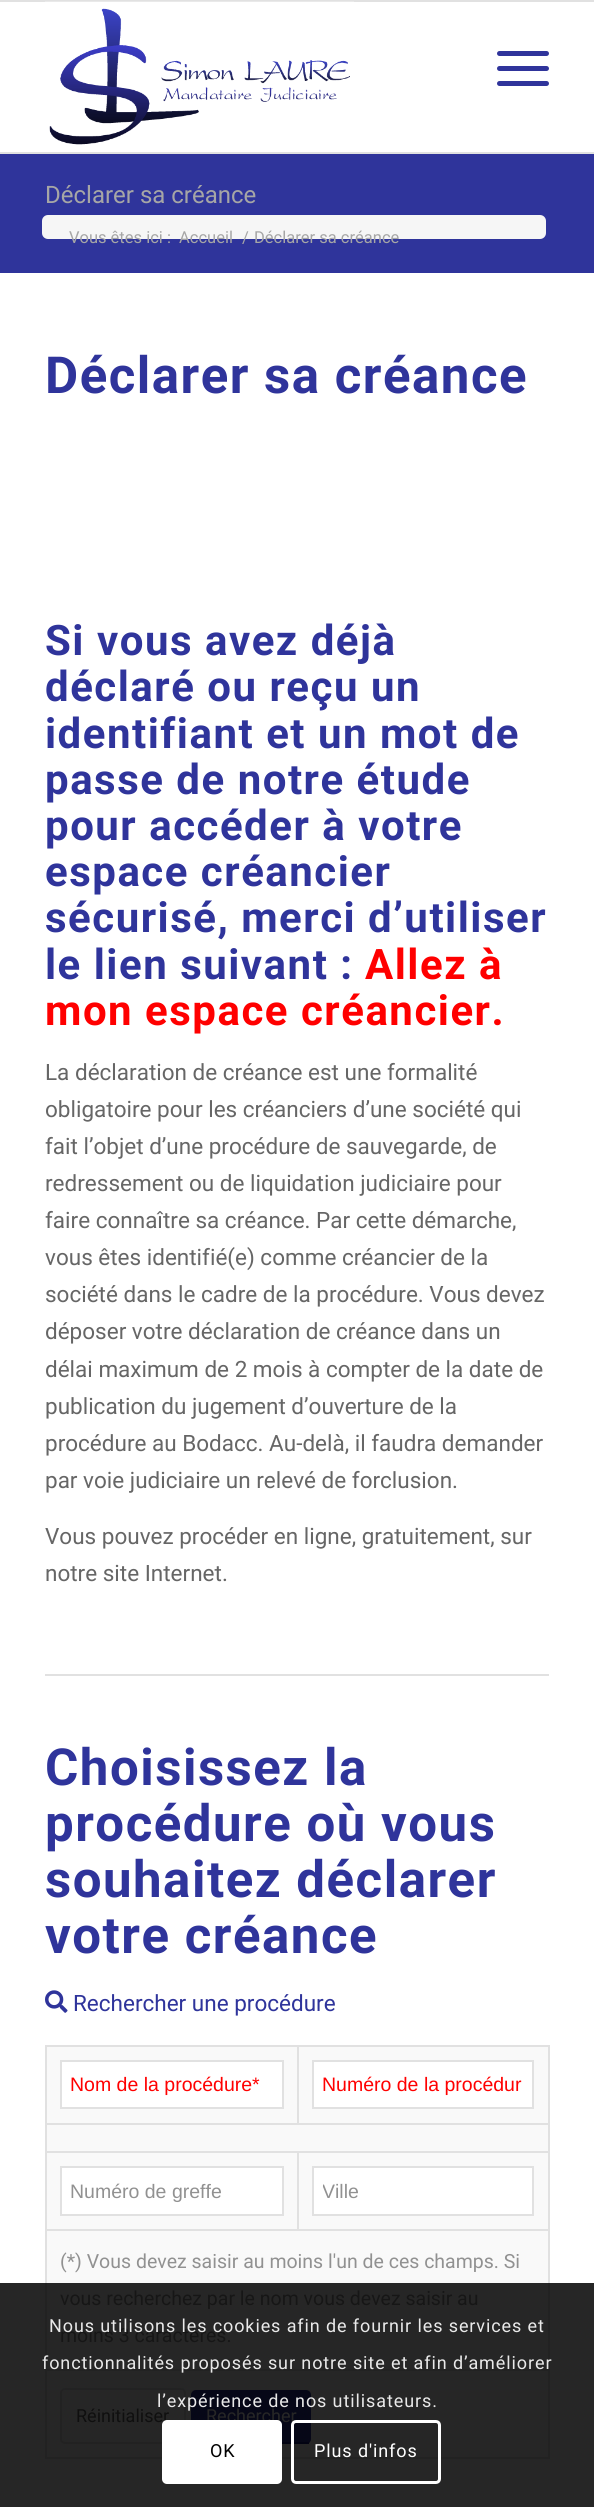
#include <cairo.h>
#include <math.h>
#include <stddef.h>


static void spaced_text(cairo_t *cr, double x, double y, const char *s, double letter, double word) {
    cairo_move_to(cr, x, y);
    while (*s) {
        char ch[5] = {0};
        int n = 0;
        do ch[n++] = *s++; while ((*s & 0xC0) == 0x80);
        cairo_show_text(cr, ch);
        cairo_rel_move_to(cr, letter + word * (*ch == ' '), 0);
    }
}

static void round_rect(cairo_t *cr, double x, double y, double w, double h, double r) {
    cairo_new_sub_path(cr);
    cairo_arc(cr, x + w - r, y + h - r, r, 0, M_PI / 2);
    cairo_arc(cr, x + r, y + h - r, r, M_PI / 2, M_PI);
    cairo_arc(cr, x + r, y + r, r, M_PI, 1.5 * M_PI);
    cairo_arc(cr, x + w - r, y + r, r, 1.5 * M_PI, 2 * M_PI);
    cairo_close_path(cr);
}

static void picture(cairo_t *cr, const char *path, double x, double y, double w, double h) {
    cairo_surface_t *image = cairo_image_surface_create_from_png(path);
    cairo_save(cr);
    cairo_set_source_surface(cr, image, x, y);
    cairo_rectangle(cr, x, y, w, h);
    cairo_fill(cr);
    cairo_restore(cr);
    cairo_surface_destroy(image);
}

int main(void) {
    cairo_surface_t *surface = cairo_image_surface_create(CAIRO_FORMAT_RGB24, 594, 2507);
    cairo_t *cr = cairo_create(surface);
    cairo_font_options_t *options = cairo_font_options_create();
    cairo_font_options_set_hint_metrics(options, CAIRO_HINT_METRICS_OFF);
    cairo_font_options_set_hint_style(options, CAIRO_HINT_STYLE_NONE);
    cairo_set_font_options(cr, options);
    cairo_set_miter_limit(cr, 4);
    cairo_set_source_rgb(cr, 1, 1, 1);
    cairo_paint(cr);
    cairo_set_source_rgb(cr, 0.149, 0.149, 0.149);
    cairo_rectangle(cr, 0, 2283, 594, 224);
    cairo_fill(cr);
    cairo_set_source_rgb(cr, 0.882, 0.882, 0.882);
    cairo_rectangle(cr, 0, 0, 594, 2);
    cairo_fill(cr);
    cairo_rectangle(cr, 0, 152, 594, 2);
    cairo_fill(cr);
    picture(cr, "img1.png", 45, 1, 309, 144);
    cairo_set_source_rgb(cr, 0.184, 0.204, 0.608);
    round_rect(cr, 497, 66, 52, 5, 2.5);
    cairo_fill(cr);
    round_rect(cr, 497, 51, 52, 5, 2.5);
    cairo_fill(cr);
    round_rect(cr, 497, 81, 52, 5, 2.5);
    cairo_fill(cr);
    cairo_rectangle(cr, 0, 154, 594, 119);
    cairo_fill(cr);
    cairo_select_font_face(cr, "Roboto", CAIRO_FONT_SLANT_NORMAL, CAIRO_FONT_WEIGHT_NORMAL);
    cairo_set_font_size(cr, 24);
    cairo_set_source_rgb(cr, 0.651, 0.651, 0.651);
    cairo_move_to(cr, 45, 203);
    cairo_show_text(cr, "Déclarer sa créance");
    cairo_set_source_rgb(cr, 0.961, 0.961, 0.961);
    round_rect(cr, 42, 215, 504, 24, 6);
    cairo_fill(cr);
    cairo_set_font_size(cr, 16.5);
    cairo_set_source_rgb(cr, 0.651, 0.651, 0.651);
    cairo_move_to(cr, 69, 243);
    cairo_show_text(cr, "Vous êtes ici :");
    cairo_move_to(cr, 179, 243);
    cairo_show_text(cr, "Accueil");
    cairo_move_to(cr, 242, 243);
    cairo_show_text(cr, "/");
    cairo_move_to(cr, 254, 243);
    cairo_show_text(cr, "Déclarer sa créance");
    cairo_select_font_face(cr, "Roboto", CAIRO_FONT_SLANT_NORMAL, CAIRO_FONT_WEIGHT_BOLD);
    cairo_set_font_size(cr, 51);
    cairo_set_source_rgb(cr, 0.184, 0.204, 0.608);
    spaced_text(cr, 45, 393, "Déclarer sa créance", 1.5, 0);
    cairo_set_font_size(cr, 42);
    spaced_text(cr, 45, 655, "Si vous avez déjà", 1.5, 0);
    spaced_text(cr, 45, 701, "déclaré ou reçu un", 1.5, 0);
    spaced_text(cr, 45, 748, "identifiant et un mot de", 1.5, 0);
    spaced_text(cr, 45, 794, "passe de notre étude", 1.5, 0);
    spaced_text(cr, 45, 840, "pour accéder à votre", 1.5, 0);
    spaced_text(cr, 45, 886, "espace créancier", 1.5, 0);
    spaced_text(cr, 45, 932, "sécurisé, merci d’utiliser", 1.5, 0);
    spaced_text(cr, 45, 979, "le lien suivant :", 1.5, 0);
    cairo_set_source_rgb(cr, 1, 0, 0);
    spaced_text(cr, 365, 979, "Allez à", 1.5, 0);
    spaced_text(cr, 45, 1025, "mon espace créancier.", 1.5, 0);
    cairo_select_font_face(cr, "Roboto", CAIRO_FONT_SLANT_NORMAL, CAIRO_FONT_WEIGHT_NORMAL);
    cairo_set_font_size(cr, 22.5);
    cairo_set_source_rgb(cr, 0.4, 0.4, 0.4);
    cairo_move_to(cr, 45, 1080);
    cairo_show_text(cr, "La déclaration de créance est une formalité");
    cairo_move_to(cr, 45, 1117);
    cairo_show_text(cr, "obligatoire pour les créanciers d’une société qui");
    cairo_move_to(cr, 45, 1154);
    cairo_show_text(cr, "fait l’objet d’une procédure de sauvegarde, de");
    cairo_move_to(cr, 45, 1191);
    cairo_show_text(cr, "redressement ou de liquidation judiciaire pour");
    cairo_move_to(cr, 45, 1228);
    cairo_show_text(cr, "faire connaître sa créance. Par cette démarche,");
    cairo_move_to(cr, 45, 1265);
    cairo_show_text(cr, "vous êtes identifié(e) comme créancier de la");
    cairo_move_to(cr, 45, 1302);
    cairo_show_text(cr, "société dans le cadre de la procédure. Vous devez");
    cairo_move_to(cr, 45, 1339);
    cairo_show_text(cr, "déposer votre déclaration de créance dans un");
    cairo_move_to(cr, 45, 1377);
    cairo_show_text(cr, "délai maximum de 2 mois à compter de la date de");
    cairo_move_to(cr, 45, 1414);
    cairo_show_text(cr, "publication du jugement d’ouverture de la");
    cairo_move_to(cr, 45, 1451);
    cairo_show_text(cr, "procédure au Bodacc. Au-delà, il faudra demander");
    cairo_move_to(cr, 45, 1488);
    cairo_show_text(cr, "par voie judiciaire un relevé de forclusion.");
    cairo_move_to(cr, 45, 1544);
    cairo_show_text(cr, "Vous pouvez procéder en ligne, gratuitement, sur");
    cairo_move_to(cr, 45, 1581);
    cairo_show_text(cr, "notre site Internet.");
    cairo_set_source_rgb(cr, 0.882, 0.882, 0.882);
    cairo_rectangle(cr, 45, 1674, 504, 2);
    cairo_fill(cr);
    cairo_select_font_face(cr, "Roboto", CAIRO_FONT_SLANT_NORMAL, CAIRO_FONT_WEIGHT_BOLD);
    cairo_set_font_size(cr, 51);
    cairo_set_source_rgb(cr, 0.184, 0.204, 0.608);
    spaced_text(cr, 45, 1785, "Choisissez la", 1.5, 0);
    spaced_text(cr, 45, 1841, "procédure où vous", 1.5, 0);
    spaced_text(cr, 45, 1897, "souhaitez déclarer", 1.5, 0);
    spaced_text(cr, 45, 1953, "votre créance", 1.5, 0);
    picture(cr, "img2.png", 45, 1990, 23, 23);
    cairo_select_font_face(cr, "Roboto", CAIRO_FONT_SLANT_NORMAL, CAIRO_FONT_WEIGHT_NORMAL);
    cairo_set_font_size(cr, 22.5);
    cairo_move_to(cr, 73, 2011);
    cairo_show_text(cr, "Rechercher une procédure");
    cairo_set_source_rgb(cr, 0.973, 0.973, 0.973);
    cairo_rectangle(cr, 47, 2047, 501, 236);
    cairo_fill(cr);
    cairo_set_source_rgb(cr, 0.882, 0.882, 0.882);
    cairo_rectangle(cr, 45, 2045, 504, 2);
    cairo_fill(cr);
    cairo_rectangle(cr, 548, 2123, 2, 160);
    cairo_fill(cr);
    cairo_rectangle(cr, 548, 2045, 2, 79);
    cairo_fill(cr);
    cairo_rectangle(cr, 297, 2123, 252, 2);
    cairo_fill(cr);
    cairo_rectangle(cr, 297, 2045, 2, 79);
    cairo_fill(cr);
    cairo_rectangle(cr, 297, 2229, 252, 2);
    cairo_fill(cr);
    cairo_rectangle(cr, 297, 2151, 2, 80);
    cairo_fill(cr);
    cairo_rectangle(cr, 45, 2229, 2, 54);
    cairo_fill(cr);
    cairo_rectangle(cr, 45, 2229, 254, 2);
    cairo_fill(cr);
    cairo_rectangle(cr, 45, 2151, 2, 80);
    cairo_fill(cr);
    cairo_rectangle(cr, 45, 2151, 504, 2);
    cairo_fill(cr);
    cairo_rectangle(cr, 45, 2123, 2, 30);
    cairo_fill(cr);
    cairo_rectangle(cr, 45, 2123, 254, 2);
    cairo_fill(cr);
    cairo_rectangle(cr, 45, 2045, 2, 79);
    cairo_fill(cr);
    cairo_set_source_rgb(cr, 1, 1, 1);
    cairo_rectangle(cr, 61, 2061, 222, 47);
    cairo_fill_preserve(cr);
    cairo_set_source_rgb(cr, 0.882, 0.882, 0.882);
    cairo_stroke(cr);
    cairo_select_font_face(cr, "Liberation Sans", CAIRO_FONT_SLANT_NORMAL, CAIRO_FONT_WEIGHT_NORMAL);
    cairo_set_font_size(cr, 19.5);
    cairo_set_source_rgb(cr, 1, 0, 0);
    cairo_move_to(cr, 70, 2091);
    cairo_show_text(cr, "Nom de la procédure*");
    cairo_set_source_rgb(cr, 1, 1, 1);
    cairo_rectangle(cr, 313, 2061, 220, 47);
    cairo_fill_preserve(cr);
    cairo_set_source_rgb(cr, 0.882, 0.882, 0.882);
    cairo_stroke(cr);
    cairo_set_source_rgb(cr, 1, 0, 0);
    cairo_move_to(cr, 322, 2091);
    cairo_show_text(cr, "Numéro de la procédur");
    cairo_set_source_rgb(cr, 1, 1, 1);
    cairo_rectangle(cr, 61, 2167, 222, 48);
    cairo_fill_preserve(cr);
    cairo_set_source_rgb(cr, 0.882, 0.882, 0.882);
    cairo_stroke(cr);
    cairo_set_source_rgb(cr, 0.569, 0.569, 0.569);
    cairo_move_to(cr, 70, 2198);
    cairo_show_text(cr, "Numéro de greffe");
    cairo_set_source_rgb(cr, 1, 1, 1);
    cairo_rectangle(cr, 313, 2167, 220, 48);
    cairo_fill_preserve(cr);
    cairo_set_source_rgb(cr, 0.882, 0.882, 0.882);
    cairo_stroke(cr);
    cairo_save(cr);
    cairo_rectangle(cr, 323, 2180, 201, 22);
    cairo_clip(cr);
    cairo_set_source_rgb(cr, 0.569, 0.569, 0.569);
    cairo_move_to(cr, 322, 2198);
    cairo_show_text(cr, "Ville");
    cairo_restore(cr);
    cairo_set_source_rgb(cr, 0.133, 0.133, 0.133);
    cairo_rectangle(cr, 548, 2283, 2, 176);
    cairo_fill(cr);
    cairo_rectangle(cr, 45, 2457, 504, 2);
    cairo_fill(cr);
    cairo_rectangle(cr, 45, 2369, 2, 90);
    cairo_fill(cr);
    cairo_rectangle(cr, 45, 2369, 504, 2);
    cairo_fill(cr);
    cairo_rectangle(cr, 45, 2283, 2, 87);
    cairo_fill(cr);
    cairo_select_font_face(cr, "Roboto", CAIRO_FONT_SLANT_NORMAL, CAIRO_FONT_WEIGHT_NORMAL);
    cairo_set_source_rgb(cr, 0.569, 0.569, 0.569);
    cairo_move_to(cr, 60, 2268);
    cairo_show_text(cr, "(*) Vous devez saisir au moins l'un de ces champs. Si");
    cairo_set_source_rgb(cr, 0.086, 0.086, 0.086);
    cairo_move_to(cr, 60, 2305);
    cairo_show_text(cr, "vous recherchez par le nom vous devez saisir au");
    cairo_move_to(cr, 60, 2342);
    cairo_show_text(cr, "moins 3 caractères.");
    round_rect(cr, 61, 2389, 124, 54, 4);
    cairo_set_source_rgb(cr, 0.133, 0.133, 0.133);
    cairo_stroke(cr);
    cairo_set_font_size(cr, 18);
    cairo_set_source_rgb(cr, 0.059, 0.059, 0.059);
    cairo_move_to(cr, 76, 2422);
    cairo_show_text(cr, "Réinitialiser");
    cairo_set_source_rgb(cr, 0.027, 0.031, 0.09);
    round_rect(cr, 191, 2390, 120, 54, 5);
    cairo_fill(cr);
    cairo_set_source_rgb(cr, 0.008, 0.012, 0.071);
    cairo_rectangle(cr, 282, 2442, 27, 2);
    cairo_fill(cr);
    cairo_set_source_rgb(cr, 0.149, 0.149, 0.149);
    cairo_move_to(cr, 206, 2422);
    cairo_show_text(cr, "Rechercher");
    cairo_set_source_rgb(cr, 0.914, 0.914, 0.914);
    spaced_text(cr, 49, 2332, "Nous utilisons les cookies afin de fournir les services et", 0.9, 0);
    spaced_text(cr, 42, 2369, "fonctionnalités proposés sur notre site et afin d’améliorer", 0.9, 0);
    spaced_text(cr, 157, 2407, "l’expérience de nos utilisateurs.", 0.9, 0);
    cairo_set_source_rgb(cr, 1, 1, 1);
    round_rect(cr, 162, 2420, 120, 64, 5);
    cairo_fill(cr);
    cairo_set_source_rgb(cr, 0, 0, 0);
    spaced_text(cr, 210, 2457, "OK", 0.9, 0);
    round_rect(cr, 292.5, 2421.5, 147, 61, 3.5);
    cairo_set_source_rgb(cr, 1, 1, 1);
    cairo_set_line_width(cr, 3);
    cairo_stroke(cr);
    spaced_text(cr, 314, 2457, "Plus d'infos", 0.9, 0);
    cairo_surface_write_to_png(surface, "page.png");
    cairo_font_options_destroy(options);
    cairo_destroy(cr);
    cairo_surface_destroy(surface);
    return 0;
}
